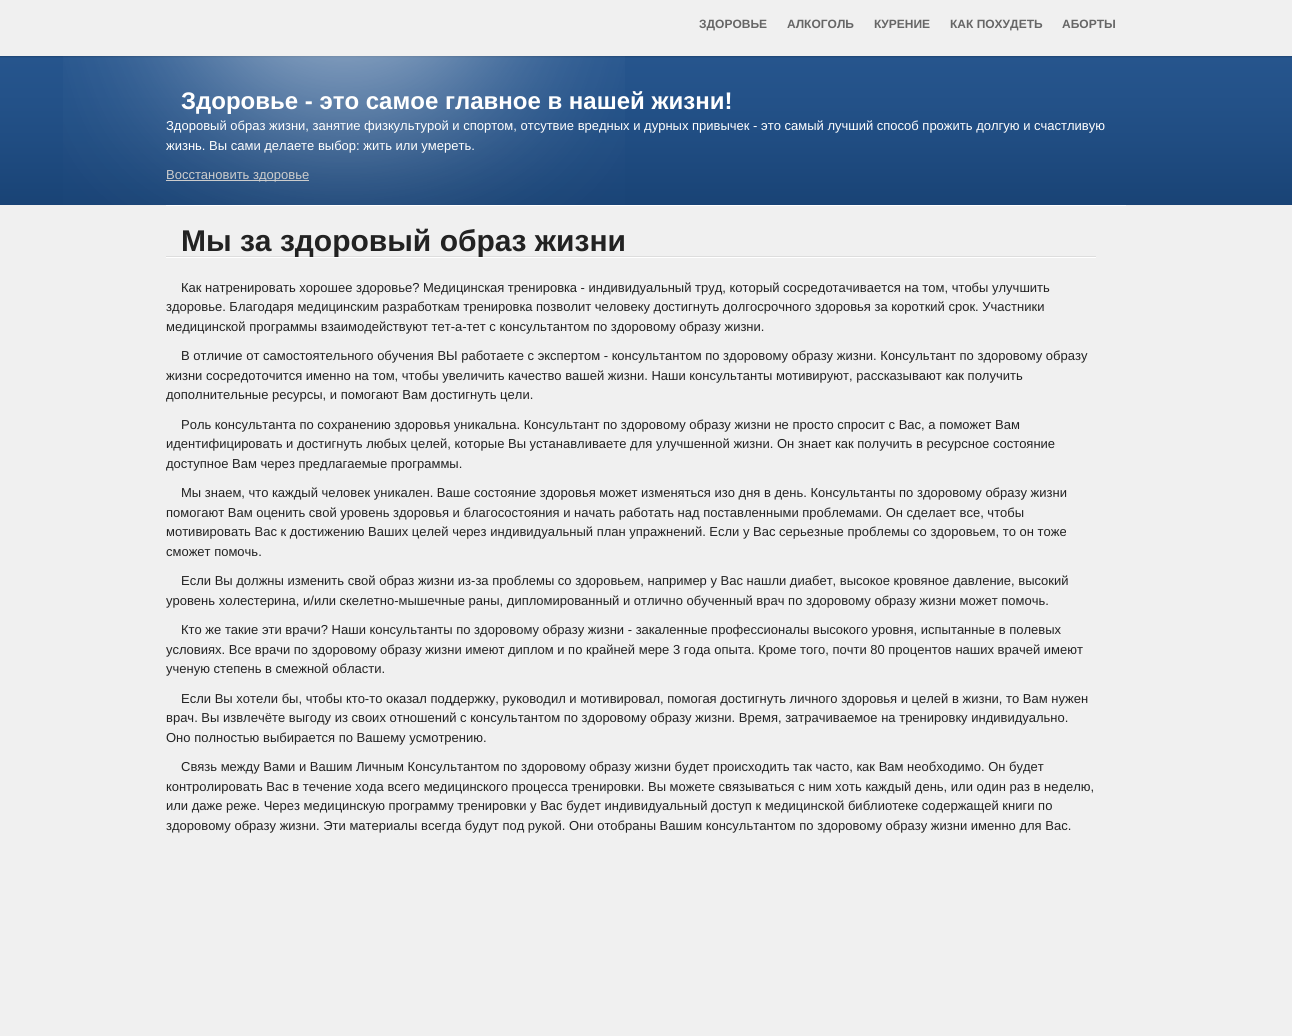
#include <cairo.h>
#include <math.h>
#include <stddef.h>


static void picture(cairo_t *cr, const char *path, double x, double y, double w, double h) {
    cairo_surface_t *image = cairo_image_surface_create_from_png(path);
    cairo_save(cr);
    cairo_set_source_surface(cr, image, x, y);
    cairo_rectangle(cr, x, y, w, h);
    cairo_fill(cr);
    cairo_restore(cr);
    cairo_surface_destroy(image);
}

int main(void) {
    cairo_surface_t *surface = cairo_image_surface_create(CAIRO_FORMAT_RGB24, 1292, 1036);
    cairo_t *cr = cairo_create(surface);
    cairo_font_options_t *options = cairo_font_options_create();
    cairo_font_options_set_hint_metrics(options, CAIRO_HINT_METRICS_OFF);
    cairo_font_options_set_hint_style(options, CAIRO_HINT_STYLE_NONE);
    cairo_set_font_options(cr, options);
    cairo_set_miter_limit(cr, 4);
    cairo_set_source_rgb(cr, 0.941, 0.941, 0.941);
    cairo_paint(cr);
    cairo_select_font_face(cr, "Liberation Sans", CAIRO_FONT_SLANT_NORMAL, CAIRO_FONT_WEIGHT_BOLD);
    cairo_set_font_size(cr, 12);
    cairo_set_source_rgb(cr, 0.4, 0.4, 0.4);
    cairo_move_to(cr, 699, 28);
    cairo_show_text(cr, "ЗДОРОВЬЕ");
    cairo_move_to(cr, 787, 28);
    cairo_show_text(cr, "АЛКОГОЛЬ");
    cairo_move_to(cr, 874, 28);
    cairo_show_text(cr, "КУРЕНИЕ");
    cairo_move_to(cr, 950, 28);
    cairo_show_text(cr, "КАК ПОХУДЕТЬ");
    cairo_move_to(cr, 1062, 28);
    cairo_show_text(cr, "АБОРТЫ");
    picture(cr, "img1.png", 0, 56, 1292, 149);
    picture(cr, "img2.png", 63, 56, 562, 149);
    cairo_set_font_size(cr, 24);
    cairo_set_source_rgb(cr, 1, 1, 1);
    cairo_move_to(cr, 181, 109);
    cairo_show_text(cr, "Здоровье - это самое главное в нашей жизни!");
    cairo_select_font_face(cr, "Liberation Sans", CAIRO_FONT_SLANT_NORMAL, CAIRO_FONT_WEIGHT_NORMAL);
    cairo_set_font_size(cr, 13);
    cairo_move_to(cr, 166, 130);
    cairo_show_text(cr, "Здоровый образ жизни, занятие физкультурой и спортом, отсутвие вредных и дурных привычек - это самый лучший способ прожить долгую и счастливую");
    cairo_move_to(cr, 166, 150);
    cairo_show_text(cr, "жизнь. Вы сами делаете выбор: жить или умереть.");
    cairo_set_source_rgb(cr, 0.8, 0.8, 0.8);
    cairo_rectangle(cr, 166, 180, 143, 1);
    cairo_fill(cr);
    cairo_move_to(cr, 166, 179);
    cairo_show_text(cr, "Восстановить здоровье");
    cairo_set_source_rgb(cr, 1, 1, 1);
    cairo_rectangle(cr, 166, 205, 960, 1);
    cairo_fill(cr);
    cairo_set_source_rgb(cr, 0.867, 0.867, 0.867);
    cairo_rectangle(cr, 166, 256, 930, 1);
    cairo_fill(cr);
    cairo_select_font_face(cr, "Liberation Sans", CAIRO_FONT_SLANT_NORMAL, CAIRO_FONT_WEIGHT_BOLD);
    cairo_set_font_size(cr, 30);
    cairo_set_source_rgb(cr, 0.133, 0.133, 0.133);
    cairo_move_to(cr, 181, 251);
    cairo_show_text(cr, "Мы за здоровый образ жизни");
    cairo_set_source_rgb(cr, 1, 1, 1);
    cairo_rectangle(cr, 166, 257, 930, 1);
    cairo_fill(cr);
    cairo_select_font_face(cr, "Liberation Sans", CAIRO_FONT_SLANT_NORMAL, CAIRO_FONT_WEIGHT_NORMAL);
    cairo_set_font_size(cr, 13);
    cairo_set_source_rgb(cr, 0.133, 0.133, 0.133);
    cairo_move_to(cr, 181, 292);
    cairo_show_text(cr, "Как натренировать хорошее здоровье? Медицинская тренировка - индивидуальный труд, который сосредотачивается на том, чтобы улучшить");
    cairo_move_to(cr, 166, 311);
    cairo_show_text(cr, "здоровье. Благодаря медицинским разработкам тренировка позволит человеку достигнуть долгосрочного здоровья за короткий срок. Участники");
    cairo_move_to(cr, 166, 331);
    cairo_show_text(cr, "медицинской программы взаимодействуют тет-а-тет с консультантом по здоровому образу жизни.");
    cairo_move_to(cr, 181, 360);
    cairo_show_text(cr, "В отличие от самостоятельного обучения ВЫ работаете с экспертом - консультантом по здоровому образу жизни. Консультант по здоровому образу");
    cairo_move_to(cr, 166, 380);
    cairo_show_text(cr, "жизни сосредоточится именно на том, чтобы увеличить качество вашей жизни. Наши консультанты мотивируют, рассказывают как получить");
    cairo_move_to(cr, 166, 399);
    cairo_show_text(cr, "дополнительные ресурсы, и помогают Вам достигнуть цели.");
    cairo_move_to(cr, 181, 429);
    cairo_show_text(cr, "Роль консультанта по сохранению здоровья уникальна. Консультант по здоровому образу жизни не просто спросит с Вас, а поможет Вам");
    cairo_move_to(cr, 166, 448);
    cairo_show_text(cr, "идентифицировать и достигнуть любых целей, которые Вы устанавливаете для улучшенной жизни. Он знает как получить в ресурсное состояние");
    cairo_move_to(cr, 166, 468);
    cairo_show_text(cr, "доступное Вам через предлагаемые программы.");
    cairo_move_to(cr, 181, 497);
    cairo_show_text(cr, "Мы знаем, что каждый человек уникален. Ваше состояние здоровья может изменяться изо дня в день. Консультанты по здоровому образу жизни");
    cairo_move_to(cr, 166, 517);
    cairo_show_text(cr, "помогают Вам оценить свой уровень здоровья и благосостояния и начать работать над поставленными проблемами. Он сделает все, чтобы");
    cairo_move_to(cr, 166, 536);
    cairo_show_text(cr, "мотивировать Вас к достижению Ваших целей через индивидуальный план упражнений. Если у Вас серьезные проблемы со здоровьем, то он тоже");
    cairo_move_to(cr, 166, 556);
    cairo_show_text(cr, "сможет помочь.");
    cairo_move_to(cr, 181, 585);
    cairo_show_text(cr, "Если Вы должны изменить свой образ жизни из-за проблемы со здоровьем, например у Вас нашли диабет, высокое кровяное давление, высокий");
    cairo_move_to(cr, 166, 605);
    cairo_show_text(cr, "уровень холестерина, и/или скелетно-мышечные раны, дипломированный и отлично обученный врач по здоровому образу жизни может помочь.");
    cairo_move_to(cr, 181, 634);
    cairo_show_text(cr, "Кто же такие эти врачи? Наши консультанты по здоровому образу жизни - закаленные профессионалы высокого уровня, испытанные в полевых");
    cairo_move_to(cr, 166, 654);
    cairo_show_text(cr, "условиях. Все врачи по здоровому образу жизни имеют диплом и по крайней мере 3 года опыта. Кроме того, почти 80 процентов наших врачей имеют");
    cairo_move_to(cr, 166, 673);
    cairo_show_text(cr, "ученую степень в смежной области.");
    cairo_move_to(cr, 181, 703);
    cairo_show_text(cr, "Если Вы хотели бы, чтобы кто-то оказал поддержку, руководил и мотивировал, помогая достигнуть личного здоровья и целей в жизни, то Вам нужен");
    cairo_move_to(cr, 166, 722);
    cairo_show_text(cr, "врач. Вы извлечёте выгоду из своих отношений с консультантом по здоровому образу жизни. Время, затрачиваемое на тренировку индивидуально.");
    cairo_move_to(cr, 166, 742);
    cairo_show_text(cr, "Оно полностью выбирается по Вашему усмотрению.");
    cairo_move_to(cr, 181, 771);
    cairo_show_text(cr, "Связь между Вами и Вашим Личным Консультантом по здоровому образу жизни будет происходить так часто, как Вам необходимо. Он будет");
    cairo_move_to(cr, 166, 791);
    cairo_show_text(cr, "контролировать Вас в течение хода всего медицинского процесса тренировки. Вы можете связываться с ним хоть каждый день, или один раз в неделю,");
    cairo_move_to(cr, 166, 810);
    cairo_show_text(cr, "или даже реже. Через медицинскую программу тренировки у Вас будет индивидуальный доступ к медицинской библиотеке содержащей книги по");
    cairo_move_to(cr, 166, 830);
    cairo_show_text(cr, "здоровому образу жизни. Эти материалы всегда будут под рукой. Они отобраны Вашим консультантом по здоровому образу жизни именно для Вас.");
    cairo_surface_write_to_png(surface, "page.png");
    cairo_font_options_destroy(options);
    cairo_destroy(cr);
    cairo_surface_destroy(surface);
    return 0;
}
